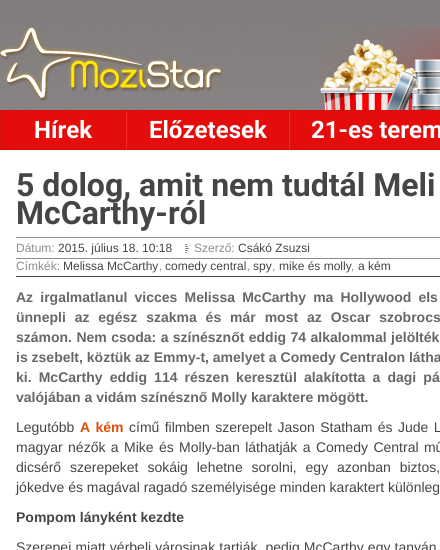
#include <cairo.h>
#include <math.h>
#include <stddef.h>


static void spaced_text(cairo_t *cr, double x, double y, const char *s, double letter, double word) {
    cairo_move_to(cr, x, y);
    while (*s) {
        char ch[5] = {0};
        int n = 0;
        do ch[n++] = *s++; while ((*s & 0xC0) == 0x80);
        cairo_show_text(cr, ch);
        cairo_rel_move_to(cr, letter + word * (*ch == ' '), 0);
    }
}

static void picture(cairo_t *cr, const char *path, double x, double y, double w, double h) {
    cairo_surface_t *image = cairo_image_surface_create_from_png(path);
    cairo_save(cr);
    cairo_set_source_surface(cr, image, x, y);
    cairo_rectangle(cr, x, y, w, h);
    cairo_fill(cr);
    cairo_restore(cr);
    cairo_surface_destroy(image);
}

int main(void) {
    cairo_surface_t *surface = cairo_image_surface_create(CAIRO_FORMAT_RGB24, 440, 550);
    cairo_t *cr = cairo_create(surface);
    cairo_font_options_t *options = cairo_font_options_create();
    cairo_font_options_set_hint_metrics(options, CAIRO_HINT_METRICS_OFF);
    cairo_font_options_set_hint_style(options, CAIRO_HINT_STYLE_NONE);
    cairo_set_font_options(cr, options);
    cairo_set_miter_limit(cr, 4);
    cairo_set_source_rgb(cr, 1, 1, 1);
    cairo_paint(cr);
    picture(cr, "img1.png", 0, 0, 440, 110);
    picture(cr, "img2.png", 0, 27, 221, 74);
    picture(cr, "img3.png", 320, 27, 120, 83);
    cairo_set_source_rgb(cr, 0.894, 0.051, 0.043);
    cairo_rectangle(cr, 0.5, 110.5, 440, 39);
    cairo_fill_preserve(cr);
    cairo_set_source_rgb(cr, 0.816, 0.067, 0.051);
    cairo_set_line_width(cr, 1);
    cairo_stroke(cr);
    cairo_rectangle(cr, 125, 111, 1, 38);
    cairo_fill(cr);
    cairo_select_font_face(cr, "Roboto", CAIRO_FONT_SLANT_NORMAL, CAIRO_FONT_WEIGHT_BOLD);
    cairo_set_font_size(cr, 24);
    cairo_set_source_rgb(cr, 1, 1, 1);
    cairo_move_to(cr, 34, 138);
    cairo_show_text(cr, "Hírek");
    cairo_set_source_rgb(cr, 0.816, 0.067, 0.051);
    cairo_rectangle(cr, 288, 111, 1, 38);
    cairo_fill(cr);
    cairo_set_source_rgb(cr, 0.961, 0.165, 0.165);
    cairo_rectangle(cr, 126, 111, 1, 38);
    cairo_fill(cr);
    cairo_set_source_rgb(cr, 1, 1, 1);
    cairo_move_to(cr, 149, 138);
    cairo_show_text(cr, "Előzetesek");
    cairo_set_source_rgb(cr, 0.961, 0.165, 0.165);
    cairo_rectangle(cr, 289, 111, 1, 38);
    cairo_fill(cr);
    cairo_set_source_rgb(cr, 1, 1, 1);
    cairo_move_to(cr, 311, 138);
    cairo_show_text(cr, "21-es terem");
    cairo_set_font_size(cr, 32);
    cairo_set_source_rgb(cr, 0.271, 0.271, 0.271);
    cairo_move_to(cr, 16, 196);
    cairo_show_text(cr, "5 dolog, amit nem tudtál Meli");
    cairo_move_to(cr, 16, 224);
    cairo_show_text(cr, "McCarthy-ról");
    cairo_set_source_rgb(cr, 0.549, 0.549, 0.549);
    cairo_rectangle(cr, 16, 237, 424, 1);
    cairo_fill(cr);
    cairo_rectangle(cr, 16, 258, 424, 1);
    cairo_fill(cr);
    cairo_select_font_face(cr, "Liberation Sans", CAIRO_FONT_SLANT_NORMAL, CAIRO_FONT_WEIGHT_NORMAL);
    cairo_set_font_size(cr, 12);
    cairo_move_to(cr, 16, 252);
    cairo_show_text(cr, "Dátum:");
    cairo_set_source_rgb(cr, 0.271, 0.271, 0.271);
    cairo_move_to(cr, 58, 252);
    cairo_show_text(cr, "2015. július 18. 10:18");
    picture(cr, "img4.png", 185, 244, 4, 9);
    cairo_set_source_rgb(cr, 0.549, 0.549, 0.549);
    cairo_move_to(cr, 194, 252);
    cairo_show_text(cr, "Szerző:");
    cairo_set_source_rgb(cr, 0.271, 0.271, 0.271);
    cairo_move_to(cr, 238, 252);
    cairo_show_text(cr, "Csákó Zsuzsi");
    cairo_set_source_rgb(cr, 0.549, 0.549, 0.549);
    cairo_move_to(cr, 16, 270);
    cairo_show_text(cr, "Címkék:");
    cairo_set_source_rgb(cr, 0.271, 0.271, 0.271);
    cairo_move_to(cr, 63, 270);
    cairo_show_text(cr, "Melissa McCarthy");
    cairo_set_source_rgb(cr, 0.549, 0.549, 0.549);
    cairo_move_to(cr, 159, 270);
    cairo_show_text(cr, ",");
    cairo_set_source_rgb(cr, 0.271, 0.271, 0.271);
    cairo_move_to(cr, 165, 270);
    cairo_show_text(cr, "comedy central");
    cairo_set_source_rgb(cr, 0.549, 0.549, 0.549);
    cairo_move_to(cr, 247, 270);
    cairo_show_text(cr, ",");
    cairo_set_source_rgb(cr, 0.271, 0.271, 0.271);
    cairo_move_to(cr, 253, 270);
    cairo_show_text(cr, "spy");
    cairo_set_source_rgb(cr, 0.549, 0.549, 0.549);
    cairo_move_to(cr, 272, 270);
    cairo_show_text(cr, ",");
    cairo_set_source_rgb(cr, 0.271, 0.271, 0.271);
    cairo_move_to(cr, 279, 270);
    cairo_show_text(cr, "mike és molly");
    cairo_set_source_rgb(cr, 0.549, 0.549, 0.549);
    cairo_move_to(cr, 351, 270);
    cairo_show_text(cr, ",");
    cairo_set_source_rgb(cr, 0.271, 0.271, 0.271);
    cairo_move_to(cr, 358, 270);
    cairo_show_text(cr, "a kém");
    cairo_rectangle(cr, 16, 276, 424, 1);
    cairo_fill(cr);
    cairo_select_font_face(cr, "Liberation Sans", CAIRO_FONT_SLANT_NORMAL, CAIRO_FONT_WEIGHT_BOLD);
    cairo_set_font_size(cr, 14);
    cairo_set_source_rgb(cr, 0.404, 0.404, 0.404);
    spaced_text(cr, 16, 302, "Az irgalmatlanul vicces Melissa McCarthy ma Hollywood els", 0, 3.25);
    spaced_text(cr, 16, 322, "ünnepli az egész szakma és már most az Oscar szobrocs", 0, 5);
    spaced_text(cr, 16, 342, "számon. Nem csoda: a színésznőt eddig 74 alkalommal jelölték", 0, 0.5);
    cairo_move_to(cr, 16, 362);
    cairo_show_text(cr, "is zsebelt, köztük az Emmy-t, amelyet a Comedy Centralon látha");
    spaced_text(cr, 16, 382, "ki. McCarthy eddig 114 részen keresztül alakította a dagi pá", 0, 3.25);
    cairo_move_to(cr, 16, 402);
    cairo_show_text(cr, "valójában a vidám színésznő Molly karaktere mögött.");
    cairo_select_font_face(cr, "Liberation Sans", CAIRO_FONT_SLANT_NORMAL, CAIRO_FONT_WEIGHT_NORMAL);
    cairo_set_source_rgb(cr, 0.271, 0.271, 0.271);
    cairo_move_to(cr, 16, 432);
    cairo_show_text(cr, "Legutóbb");
    cairo_select_font_face(cr, "Liberation Sans", CAIRO_FONT_SLANT_NORMAL, CAIRO_FONT_WEIGHT_BOLD);
    cairo_set_source_rgb(cr, 0.878, 0.302, 0.043);
    spaced_text(cr, 80, 432, "A kém", 0, 1.5);
    cairo_select_font_face(cr, "Liberation Sans", CAIRO_FONT_SLANT_NORMAL, CAIRO_FONT_WEIGHT_NORMAL);
    cairo_set_source_rgb(cr, 0.271, 0.271, 0.271);
    spaced_text(cr, 129, 432, "című filmben szerepelt Jason Statham és Jude L", 0, 1.5);
    spaced_text(cr, 16, 452, "magyar nézők a Mike és Molly-ban láthatják a Comedy Central mű", 0, 1.5);
    spaced_text(cr, 16, 472, "dicsérő szerepeket sokáig lehetne sorolni, egy azonban biztos,", 0, 5);
    cairo_move_to(cr, 16, 492);
    cairo_show_text(cr, "jókedve és magával ragadó személyisége minden karaktert különleg");
    cairo_select_font_face(cr, "Liberation Sans", CAIRO_FONT_SLANT_NORMAL, CAIRO_FONT_WEIGHT_BOLD);
    cairo_move_to(cr, 16, 522);
    cairo_show_text(cr, "Pompom lányként kezdte");
    cairo_select_font_face(cr, "Liberation Sans", CAIRO_FONT_SLANT_NORMAL, CAIRO_FONT_WEIGHT_NORMAL);
    spaced_text(cr, 16, 552, "Szerepei miatt vérbeli városinak tartják, pedig McCarthy egy tanyán", 0, 0.25);
    cairo_surface_write_to_png(surface, "page.png");
    cairo_font_options_destroy(options);
    cairo_destroy(cr);
    cairo_surface_destroy(surface);
    return 0;
}
